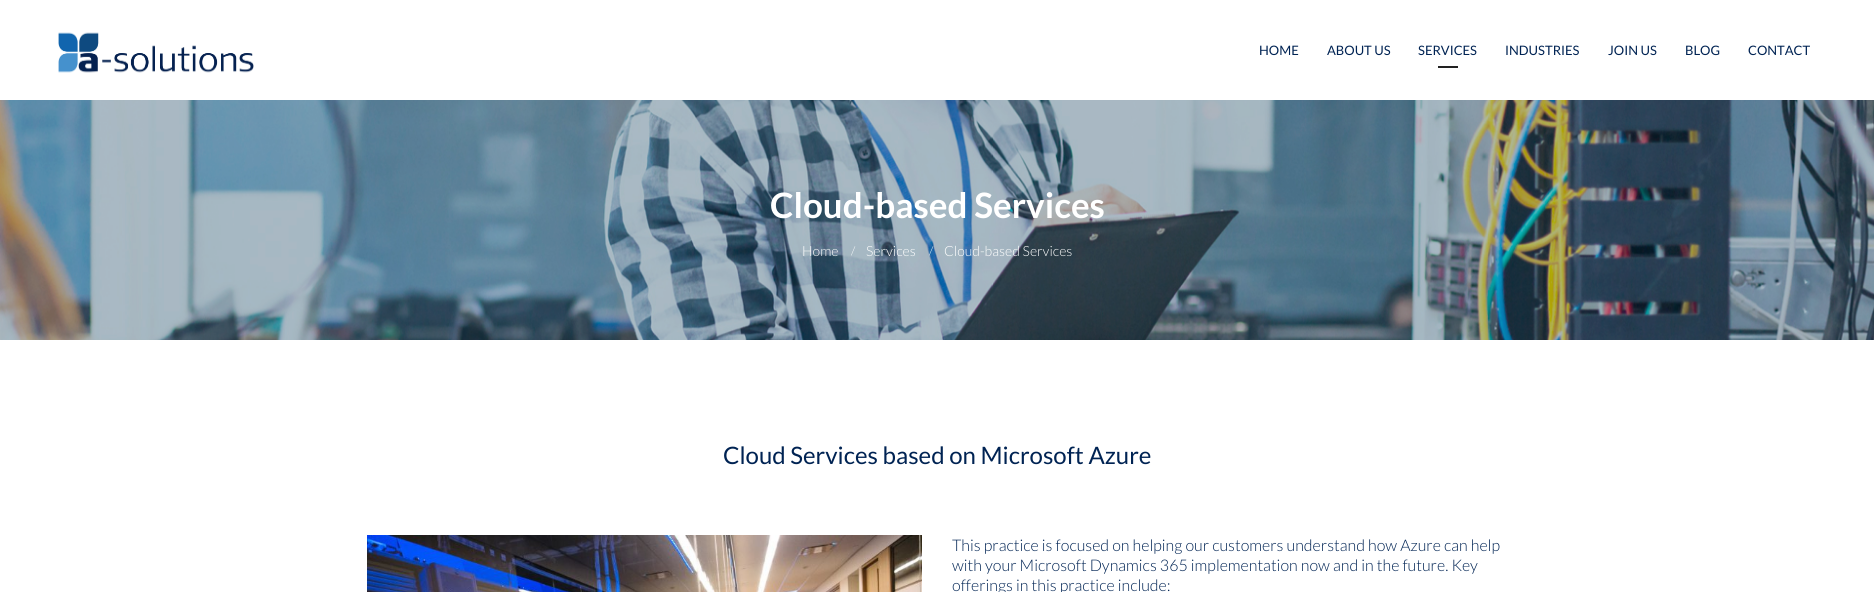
#include <cairo.h>
#include <math.h>
#include <stddef.h>


static void picture(cairo_t *cr, const char *path, double x, double y, double w, double h) {
    cairo_surface_t *image = cairo_image_surface_create_from_png(path);
    cairo_save(cr);
    cairo_set_source_surface(cr, image, x, y);
    cairo_rectangle(cr, x, y, w, h);
    cairo_fill(cr);
    cairo_restore(cr);
    cairo_surface_destroy(image);
}

int main(void) {
    cairo_surface_t *surface = cairo_image_surface_create(CAIRO_FORMAT_RGB24, 1874, 592);
    cairo_t *cr = cairo_create(surface);
    cairo_font_options_t *options = cairo_font_options_create();
    cairo_font_options_set_hint_metrics(options, CAIRO_HINT_METRICS_OFF);
    cairo_font_options_set_hint_style(options, CAIRO_HINT_STYLE_NONE);
    cairo_set_font_options(cr, options);
    cairo_set_miter_limit(cr, 4);
    cairo_set_source_rgb(cr, 1, 1, 1);
    cairo_paint(cr);
    picture(cr, "img1.png", 58, 32, 196, 41);
    cairo_select_font_face(cr, "Lato", CAIRO_FONT_SLANT_NORMAL, CAIRO_FONT_WEIGHT_NORMAL);
    cairo_set_font_size(cr, 13);
    cairo_set_source_rgb(cr, 0, 0.137, 0.325);
    cairo_move_to(cr, 1259, 55);
    cairo_show_text(cr, "HOME");
    cairo_move_to(cr, 1327, 55);
    cairo_show_text(cr, "ABOUT US");
    cairo_move_to(cr, 1418, 55);
    cairo_show_text(cr, "SERVICES");
    cairo_set_source_rgb(cr, 0.133, 0.133, 0.133);
    cairo_rectangle(cr, 1438, 66, 20, 2);
    cairo_fill(cr);
    cairo_set_source_rgb(cr, 0, 0.137, 0.325);
    cairo_move_to(cr, 1505, 55);
    cairo_show_text(cr, "INDUSTRIES");
    cairo_move_to(cr, 1608, 55);
    cairo_show_text(cr, "JOIN US");
    cairo_move_to(cr, 1685, 55);
    cairo_show_text(cr, "BLOG");
    cairo_move_to(cr, 1748, 55);
    cairo_show_text(cr, "CONTACT");
    picture(cr, "img2.png", 0, 100, 1874, 240);
    cairo_select_font_face(cr, "Lato", CAIRO_FONT_SLANT_NORMAL, CAIRO_FONT_WEIGHT_BOLD);
    cairo_set_font_size(cr, 35);
    cairo_set_source_rgb(cr, 1, 1, 1);
    cairo_move_to(cr, 770, 218);
    cairo_show_text(cr, "Cloud-based Services");
    cairo_select_font_face(cr, "Lato Light", CAIRO_FONT_SLANT_NORMAL, CAIRO_FONT_WEIGHT_NORMAL);
    cairo_set_font_size(cr, 14);
    cairo_move_to(cr, 802, 256);
    cairo_show_text(cr, "Home");
    cairo_set_font_size(cr, 12);
    cairo_move_to(cr, 851, 255);
    cairo_show_text(cr, "/");
    cairo_set_font_size(cr, 14);
    cairo_move_to(cr, 866, 256);
    cairo_show_text(cr, "Services");
    cairo_set_font_size(cr, 12);
    cairo_move_to(cr, 929, 255);
    cairo_show_text(cr, "/");
    cairo_set_font_size(cr, 14);
    cairo_move_to(cr, 944, 256);
    cairo_show_text(cr, "Cloud-based Services");
    cairo_select_font_face(cr, "Lato", CAIRO_FONT_SLANT_NORMAL, CAIRO_FONT_WEIGHT_NORMAL);
    cairo_set_font_size(cr, 24);
    cairo_set_source_rgb(cr, 0, 0.137, 0.325);
    cairo_move_to(cr, 723, 464);
    cairo_show_text(cr, "Cloud Services based on Microsoft Azure");
    picture(cr, "img3.png", 367, 535, 555, 57);
    cairo_select_font_face(cr, "Lato Light", CAIRO_FONT_SLANT_NORMAL, CAIRO_FONT_WEIGHT_NORMAL);
    cairo_set_font_size(cr, 16);
    cairo_move_to(cr, 952, 551);
    cairo_show_text(cr, "This practice is focused on helping our customers understand how Azure can help");
    cairo_move_to(cr, 952, 571);
    cairo_show_text(cr, "with your Microsoft Dynamics 365 implementation now and in the future. Key");
    cairo_move_to(cr, 952, 591);
    cairo_show_text(cr, "offerings in this practice include:");
    cairo_surface_write_to_png(surface, "page.png");
    cairo_font_options_destroy(options);
    cairo_destroy(cr);
    cairo_surface_destroy(surface);
    return 0;
}
